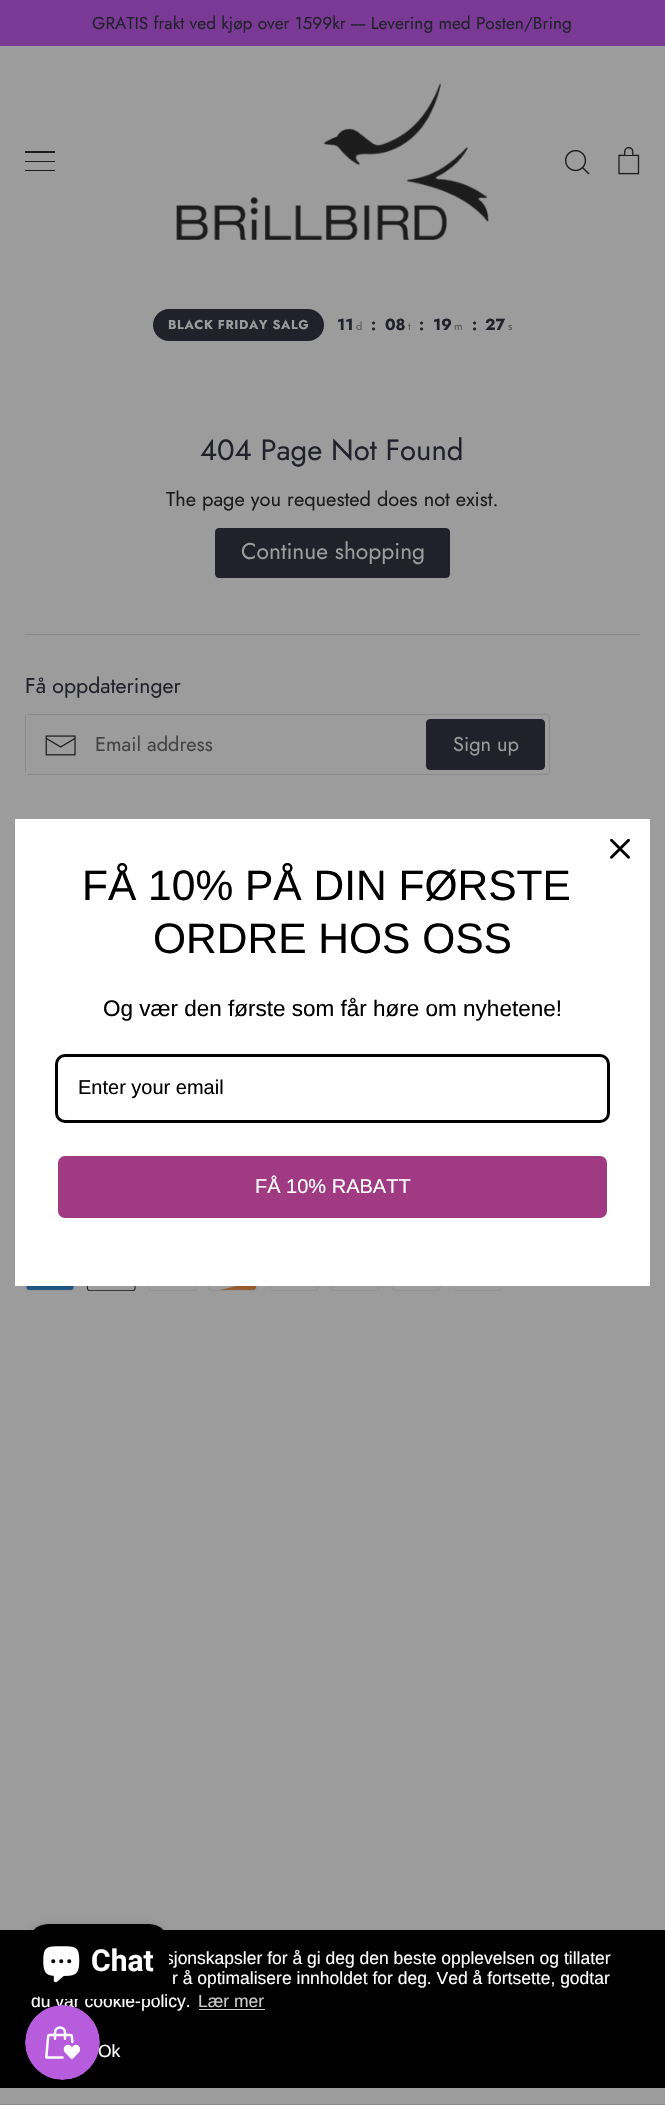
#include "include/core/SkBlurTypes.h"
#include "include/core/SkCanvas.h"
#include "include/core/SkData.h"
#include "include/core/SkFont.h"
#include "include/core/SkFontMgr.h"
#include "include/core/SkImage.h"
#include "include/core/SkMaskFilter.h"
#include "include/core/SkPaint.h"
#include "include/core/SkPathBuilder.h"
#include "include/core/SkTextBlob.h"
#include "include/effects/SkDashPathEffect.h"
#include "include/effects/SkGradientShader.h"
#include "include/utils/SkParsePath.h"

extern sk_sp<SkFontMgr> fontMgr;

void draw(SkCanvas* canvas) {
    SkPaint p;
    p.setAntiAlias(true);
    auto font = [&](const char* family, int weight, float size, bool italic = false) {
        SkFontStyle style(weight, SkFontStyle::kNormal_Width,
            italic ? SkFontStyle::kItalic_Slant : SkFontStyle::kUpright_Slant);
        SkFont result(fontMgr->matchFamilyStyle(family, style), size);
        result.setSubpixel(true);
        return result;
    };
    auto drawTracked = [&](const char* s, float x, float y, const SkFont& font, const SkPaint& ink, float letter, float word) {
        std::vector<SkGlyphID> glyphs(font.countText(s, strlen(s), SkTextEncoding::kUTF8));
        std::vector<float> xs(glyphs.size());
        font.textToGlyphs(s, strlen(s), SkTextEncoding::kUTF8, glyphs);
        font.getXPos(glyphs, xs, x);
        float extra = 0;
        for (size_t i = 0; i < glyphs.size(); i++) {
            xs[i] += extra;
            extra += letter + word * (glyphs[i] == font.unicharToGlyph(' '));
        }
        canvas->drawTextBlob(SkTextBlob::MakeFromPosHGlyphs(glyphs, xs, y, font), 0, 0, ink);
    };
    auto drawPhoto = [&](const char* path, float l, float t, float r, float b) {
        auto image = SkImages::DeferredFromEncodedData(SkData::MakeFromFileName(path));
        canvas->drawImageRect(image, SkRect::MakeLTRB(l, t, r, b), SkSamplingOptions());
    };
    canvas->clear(0xFF9C9C9C);
    p.setColor(0xFF7B3996);
    canvas->drawRect(SkRect::MakeLTRB(0, 0, 665, 46), p);
    auto font1 = font("Jost", 400, 17.3f);
    p.setColor(0xFF20212A);
    canvas->drawString("GRATIS frakt ved kjøp over 1599kr ---- Levering med Posten/Bring", 92, 29, font1, p);
    {
        const struct { float l, t, r, b; SkColor color; } items[] = {
            {25, 151, 55, 153, 0xFF1C1C1C},
            {25, 161, 55, 162, 0xFF1C1C1C},
            {25, 170, 55, 171, 0xFF1C1C1C},
        };
        for (auto [l, t, r, b, color] : items) {
            p.setColor(color);
            canvas->drawRect(SkRect::MakeLTRB(l, t, r, b), p);
        }
    }
    drawPhoto("media/1.png", 176, 83, 489, 240);
    drawPhoto("media/2.png", 564, 149, 590, 175);
    drawPhoto("media/3.png", 618, 146, 640, 175);
    p.setColor(0xFF898989);
    canvas->drawRect(SkRect::MakeLTRB(0, 2104, 665, 2105), p);
    p.setColor(0xFF20212A);
    canvas->drawRoundRect(SkRect::MakeLTRB(153, 309, 324, 341), 16, 16, p);
    auto font2 = font("Jost", 700, 12.75f);
    p.setColor(0xFF9C9C9C);
    drawTracked("BLACK FRIDAY SALG", 168, 329, font2, p, 0.6f, 0);
    auto font3 = font("Jost", 700, 16);
    p.setColor(0xFF20212A);
    canvas->drawString("11", 337, 330, font3, p);
    auto font4 = font("Jost", 400, 11);
    p.setColor(0xFF585858);
    canvas->drawString("d", 356, 330, font4, p);
    p.setColor(0xFF20212A);
    canvas->drawString(":", 371, 330, font3, p);
    canvas->drawString("08", 385, 330, font3, p);
    p.setColor(0xFF585858);
    canvas->drawString("t", 408, 330, font4, p);
    p.setColor(0xFF20212A);
    canvas->drawString(":", 419, 330, font3, p);
    canvas->drawString("19", 433, 330, font3, p);
    p.setColor(0xFF585858);
    canvas->drawString("m", 454, 330, font4, p);
    p.setColor(0xFF20212A);
    canvas->drawString(":", 472, 330, font3, p);
    canvas->drawString("27", 485, 330, font3, p);
    p.setColor(0xFF585858);
    canvas->drawString("s", 508, 330, font4, p);
    auto font5 = font("Jost", 400, 29.25f);
    p.setColor(0xFF20212A);
    canvas->drawString("404 Page Not Found", 200, 460, font5, p);
    auto font6 = font("Jost", 400, 20);
    p.setColor(0xFF1C1C1C);
    canvas->drawString("The page you requested does not exist.", 166, 506, font6, p);
    p.setColor(0xFF20212A);
    canvas->drawRoundRect(SkRect::MakeLTRB(215.5f, 528.5f, 449.5f, 577.5f), 3.5f, 3.5f, p);
    p.setStyle(SkPaint::kStroke_Style);
    p.setStrokeWidth(1);
    canvas->drawRoundRect(SkRect::MakeLTRB(215.5f, 528.5f, 449.5f, 577.5f), 3.5f, 3.5f, p);
    auto font7 = font("Jost", 400, 22.75f);
    p.setStyle(SkPaint::kFill_Style);
    p.setColor(0xFF9C9C9C);
    canvas->drawString("Continue shopping", 241, 559, font7, p);
    p.setColor(0xFF898989);
    canvas->drawRect(SkRect::MakeLTRB(25, 634, 640, 635), p);
    auto font8 = font("Jost", 400, 21.25f);
    p.setColor(0xFF20212A);
    canvas->drawString("Få oppdateringer", 25, 693, font8, p);
    p.setStyle(SkPaint::kStroke_Style);
    p.setColor(0xFF898989);
    canvas->drawRoundRect(SkRect::MakeLTRB(25.5f, 714.5f, 549.5f, 774.5f), 3.5f, 3.5f, p);
    drawPhoto("media/4.png", 45, 735, 76, 756);
    p.setStyle(SkPaint::kFill_Style);
    p.setColor(0xFF9C9C9C);
    canvas->drawRect(SkRect::MakeLTRB(26, 715, 28, 774), p);
    p.setColor(0xFF434343);
    canvas->drawString("Email address", 95, 751, font6, p);
    p.setColor(0xFF20212A);
    canvas->drawRoundRect(SkRect::MakeLTRB(426.5f, 719.5f, 544.5f, 769.5f), 3.5f, 3.5f, p);
    p.setStyle(SkPaint::kStroke_Style);
    canvas->drawRoundRect(SkRect::MakeLTRB(426.5f, 719.5f, 544.5f, 769.5f), 3.5f, 3.5f, p);
    p.setStyle(SkPaint::kFill_Style);
    p.setColor(0xFF9C9C9C);
    canvas->drawString("Sign up", 453, 751, font6, p);
    drawPhoto("media/5.png", 25, 1286, 75, 1291);
    drawPhoto("media/6.png", 86, 1286, 136, 1291);
    drawPhoto("media/7.png", 148, 1286, 197, 1291);
    drawPhoto("media/8.png", 208, 1286, 257, 1291);
    drawPhoto("media/9.png", 269, 1286, 319, 1291);
    drawPhoto("media/10.png", 330, 1286, 380, 1291);
    drawPhoto("media/11.png", 391, 1286, 441, 1291);
    drawPhoto("media/7.png", 453, 1286, 502, 1291);
    p.setColor(0xFFFFFFFF);
    canvas->drawRect(SkRect::MakeLTRB(15, 819, 650, 1286), p);
    drawPhoto("media/12.png", 610, 839, 630, 859);
    auto font9 = font("Liberation Sans", 400, 42.5f);
    p.setColor(0xFF000000);
    canvas->drawString("FÅ 10% PÅ DIN FØRSTE", 82, 900, font9, p);
    canvas->drawString("ORDRE HOS OSS", 153, 953, font9, p);
    auto font10 = font("Liberation Sans", 400, 22.5f);
    canvas->drawString("Og vær den første som får høre om nyhetene!", 103, 1016, font10, p);
    p.setStyle(SkPaint::kStroke_Style);
    p.setStrokeWidth(3);
    canvas->drawRoundRect(SkRect::MakeLTRB(56.5f, 1055.5f, 608.5f, 1121.5f), 8.5f, 8.5f, p);
    auto font11 = font("Liberation Sans", 400, 20);
    p.setStyle(SkPaint::kFill_Style);
    canvas->drawString("Enter your email", 78, 1094, font11, p);
    p.setColor(0xFFA03B83);
    canvas->drawRoundRect(SkRect::MakeLTRB(56.5f, 1154.5f, 608.5f, 1219.5f), 8.5f, 8.5f, p);
    p.setStyle(SkPaint::kStroke_Style);
    p.setColor(0xFFFFFFFF);
    canvas->drawRoundRect(SkRect::MakeLTRB(56.5f, 1154.5f, 608.5f, 1219.5f), 8.5f, 8.5f, p);
    p.setStyle(SkPaint::kFill_Style);
    canvas->drawString("FÅ 10% RABATT", 255, 1193, font11, p);
    p.setColor(0xFF000000);
    canvas->drawRect(SkRect::MakeLTRB(0, 1930, 665, 2088), p);
    p.setColor(0x26000000);
    p.setMaskFilter(SkMaskFilter::MakeBlur(kNormal_SkBlurStyle, 3));
    canvas->drawRoundRect(SkRect::MakeLTRB(28, 1924, 169, 1999), 20, 20, p);
    p.setMaskFilter(nullptr);
    auto font12 = font("Liberation Sans", 400, 17.5f);
    p.setColor(0xFFFFFFFF);
    canvas->drawString("sjonskapsler for å gi deg den beste opplevelsen og tillater", 165, 1964, font12, p);
    canvas->drawString("du vår cookie-policy.", 31, 2007, font12, p);
    p.setColor(0xFF000000);
    canvas->drawRoundRect(SkRect::MakeLTRB(28, 1924, 169, 1999), 20, 20, p);
    drawPhoto("media/13.png", 43, 1946, 80, 1983);
    auto font13 = font("Roboto", 700, 30);
    p.setColor(0xFFFFFFFF);
    canvas->drawString("Chat", 91, 1971, font13, p);
    canvas->drawString("r å optimalisere innholdet for deg. Ved å fortsette, godtar", 172, 1984, font12, p);
    p.setColor(0xFFCCCCCC);
    canvas->drawString("Lær mer", 198, 2007, font12, p);
    canvas->drawRect(SkRect::MakeLTRB(199, 2009, 265, 2010), p);
    p.setColor(0xFFFFFFFF);
    canvas->drawString("Ok", 98, 2057, font12, p);
    drawPhoto("media/14.png", 25, 2005, 100, 2080);
}
